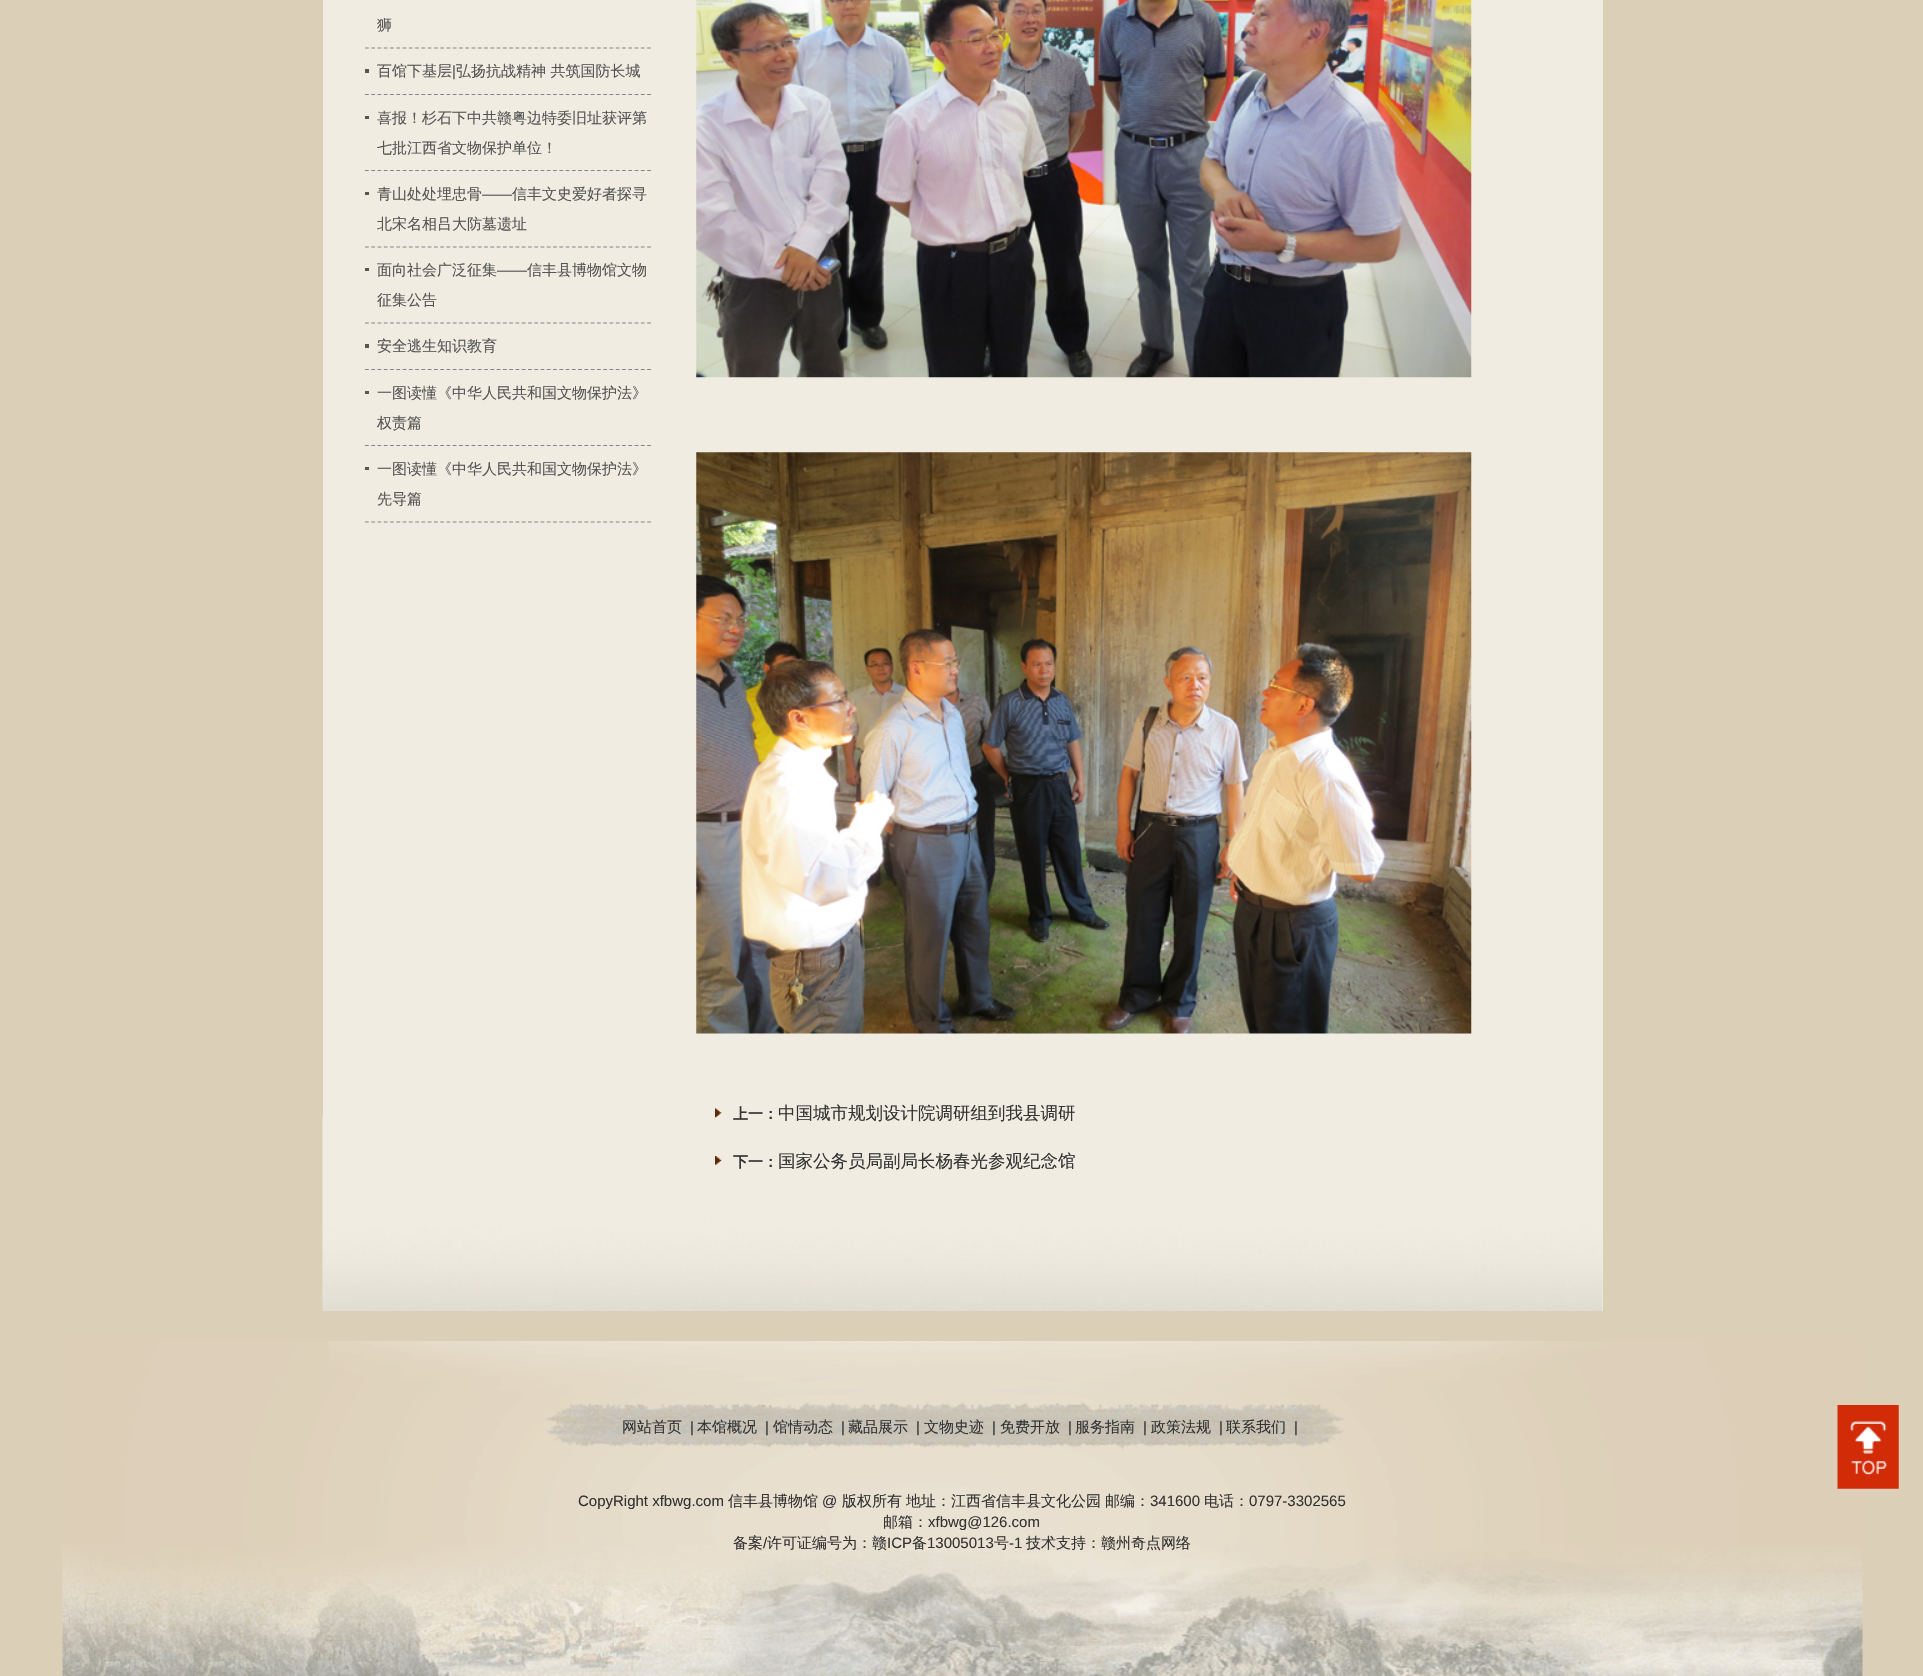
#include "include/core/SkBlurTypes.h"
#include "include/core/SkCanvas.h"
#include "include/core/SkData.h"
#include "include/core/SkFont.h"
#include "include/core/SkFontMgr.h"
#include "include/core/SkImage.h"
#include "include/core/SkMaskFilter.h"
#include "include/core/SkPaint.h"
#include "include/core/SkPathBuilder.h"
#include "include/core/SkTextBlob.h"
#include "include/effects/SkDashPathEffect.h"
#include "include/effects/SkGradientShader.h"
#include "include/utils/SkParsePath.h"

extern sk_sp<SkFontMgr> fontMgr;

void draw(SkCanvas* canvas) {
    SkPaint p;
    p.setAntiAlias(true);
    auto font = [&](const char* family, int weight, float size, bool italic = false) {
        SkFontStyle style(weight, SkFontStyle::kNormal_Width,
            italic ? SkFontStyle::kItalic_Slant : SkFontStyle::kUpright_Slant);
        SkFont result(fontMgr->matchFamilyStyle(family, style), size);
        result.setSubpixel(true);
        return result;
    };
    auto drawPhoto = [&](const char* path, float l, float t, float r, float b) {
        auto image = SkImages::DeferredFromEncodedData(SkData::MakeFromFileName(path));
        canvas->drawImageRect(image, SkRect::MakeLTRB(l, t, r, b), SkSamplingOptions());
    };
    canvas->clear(0xFFDCCFB7);
    p.setColor(0xFFF1ECE1);
    canvas->drawRect(SkRect::MakeLTRB(323, 0, 1603, 1311), p);
    drawPhoto("media/1.png", 322, 1117, 1603, 1311);
    p.setStyle(SkPaint::kStroke_Style);
    p.setStrokeWidth(1.2f);
    p.setColor(0xFF848484);
    p.setPathEffect(SkDashPathEffect::Make({{3.75f, 2.52f}}, 0));
    canvas->drawPath(SkPathBuilder().moveTo(365, 48).lineTo(651, 48).detach(), p);
    p.setPathEffect(nullptr);
    auto font1 = font("WenQuanYi Zen Hei", 500, 15);
    p.setStyle(SkPaint::kFill_Style);
    p.setColor(0xFF555555);
    canvas->drawString("狮", 377, 30, font1, p);
    p.setColor(0xFF575654);
    canvas->drawRect(SkRect::MakeLTRB(365, 69, 369, 73), p);
    p.setStyle(SkPaint::kStroke_Style);
    p.setColor(0xFF848484);
    p.setPathEffect(SkDashPathEffect::Make({{3.75f, 2.52f}}, 0));
    canvas->drawPath(SkPathBuilder().moveTo(365, 94.5f).lineTo(651, 94.5f).detach(), p);
    p.setPathEffect(nullptr);
    p.setStyle(SkPaint::kFill_Style);
    p.setColor(0xFF555555);
    canvas->drawString("百馆下基层", 377, 76, font1, p);
    auto font2 = font("Liberation Sans", 400, 15);
    canvas->drawString("|", 452, 76, font2, p);
    canvas->drawString("弘扬抗战精神 共筑国防长城", 456, 76, font1, p);
    p.setColor(0xFF575654);
    canvas->drawRect(SkRect::MakeLTRB(365, 116, 369, 119), p);
    p.setStyle(SkPaint::kStroke_Style);
    p.setColor(0xFF848484);
    p.setPathEffect(SkDashPathEffect::Make({{3.75f, 2.52f}}, 0));
    canvas->drawPath(SkPathBuilder().moveTo(365, 170.5f).lineTo(651, 170.5f).detach(), p);
    p.setPathEffect(nullptr);
    p.setStyle(SkPaint::kFill_Style);
    p.setColor(0xFF555555);
    canvas->drawString("喜报！杉石下中共赣粤边特委旧址获评第", 377, 123, font1, p);
    canvas->drawString("七批江西省文物保护单位！", 377, 153, font1, p);
    p.setColor(0xFF575654);
    canvas->drawRect(SkRect::MakeLTRB(365, 192, 369, 195), p);
    p.setStyle(SkPaint::kStroke_Style);
    p.setColor(0xFF848484);
    p.setPathEffect(SkDashPathEffect::Make({{3.75f, 2.52f}}, 0));
    canvas->drawPath(SkPathBuilder().moveTo(365, 247).lineTo(651, 247).detach(), p);
    p.setPathEffect(nullptr);
    p.setStyle(SkPaint::kFill_Style);
    p.setColor(0xFF555555);
    canvas->drawString("青山处处埋忠骨", 377, 199, font1, p);
    canvas->drawString("——", 482, 199, font2, p);
    canvas->drawString("信丰文史爱好者探寻", 512, 199, font1, p);
    canvas->drawString("北宋名相吕大防墓遗址", 377, 229, font1, p);
    p.setColor(0xFF575654);
    canvas->drawRect(SkRect::MakeLTRB(365, 268, 369, 271), p);
    p.setStyle(SkPaint::kStroke_Style);
    p.setColor(0xFF848484);
    p.setPathEffect(SkDashPathEffect::Make({{3.75f, 2.52f}}, 0));
    canvas->drawPath(SkPathBuilder().moveTo(365, 323).lineTo(651, 323).detach(), p);
    p.setPathEffect(nullptr);
    p.setStyle(SkPaint::kFill_Style);
    p.setColor(0xFF555555);
    canvas->drawString("面向社会广泛征集", 377, 275, font1, p);
    canvas->drawString("——", 497, 275, font2, p);
    canvas->drawString("信丰县博物馆文物", 527, 275, font1, p);
    canvas->drawString("征集公告", 377, 305, font1, p);
    p.setColor(0xFF575654);
    canvas->drawRect(SkRect::MakeLTRB(365, 344, 369, 348), p);
    p.setStyle(SkPaint::kStroke_Style);
    p.setColor(0xFF848484);
    p.setPathEffect(SkDashPathEffect::Make({{3.75f, 2.52f}}, 0));
    canvas->drawPath(SkPathBuilder().moveTo(365, 369.5f).lineTo(651, 369.5f).detach(), p);
    p.setPathEffect(nullptr);
    p.setStyle(SkPaint::kFill_Style);
    p.setColor(0xFF555555);
    canvas->drawString("安全逃生知识教育", 377, 351, font1, p);
    p.setColor(0xFF575654);
    canvas->drawRect(SkRect::MakeLTRB(365, 391, 369, 394), p);
    p.setStyle(SkPaint::kStroke_Style);
    p.setColor(0xFF848484);
    p.setPathEffect(SkDashPathEffect::Make({{3.75f, 2.52f}}, 0));
    canvas->drawPath(SkPathBuilder().moveTo(365, 445.5f).lineTo(651, 445.5f).detach(), p);
    p.setPathEffect(nullptr);
    p.setStyle(SkPaint::kFill_Style);
    p.setColor(0xFF555555);
    canvas->drawString("一图读懂《中华人民共和国文物保护法》", 377, 398, font1, p);
    canvas->drawString("权责篇", 377, 428, font1, p);
    p.setColor(0xFF575654);
    canvas->drawRect(SkRect::MakeLTRB(365, 467, 369, 470), p);
    p.setStyle(SkPaint::kStroke_Style);
    p.setColor(0xFF848484);
    p.setPathEffect(SkDashPathEffect::Make({{3.75f, 2.52f}}, 0));
    canvas->drawPath(SkPathBuilder().moveTo(365, 522).lineTo(651, 522).detach(), p);
    p.setPathEffect(nullptr);
    p.setStyle(SkPaint::kFill_Style);
    p.setColor(0xFF555555);
    canvas->drawString("一图读懂《中华人民共和国文物保护法》", 377, 474, font1, p);
    canvas->drawString("先导篇", 377, 504, font1, p);
    drawPhoto("media/2.png", 696, 0, 1472, 378);
    drawPhoto("media/3.png", 696, 452, 1472, 1034);
    drawPhoto("media/4.png", 715, 1108, 722, 1118);
    auto font3 = font("WenQuanYi Zen Hei", 700, 15);
    p.setColor(0xFF333333);
    canvas->drawString("上一：", 733, 1119, font3, p);
    auto font4 = font("WenQuanYi Zen Hei", 500, 17.5f);
    canvas->drawString("中国城市规划设计院调研组到我县调研", 778, 1119, font4, p);
    drawPhoto("media/5.png", 715, 1156, 722, 1165);
    canvas->drawString("下一：", 733, 1167, font3, p);
    canvas->drawString("国家公务员局副局长杨春光参观纪念馆", 778, 1167, font4, p);
    drawPhoto("media/6.png", 62, 1341, 1863, 1676);
    canvas->drawString("网站首页", 622, 1432, font1, p);
    canvas->drawString("|", 690, 1432, font2, p);
    canvas->drawString("本馆概况", 697, 1432, font1, p);
    canvas->drawString("|", 765, 1432, font2, p);
    canvas->drawString("馆情动态", 773, 1432, font1, p);
    canvas->drawString("|", 841, 1432, font2, p);
    canvas->drawString("藏品展示", 848, 1432, font1, p);
    canvas->drawString("|", 916, 1432, font2, p);
    canvas->drawString("文物史迹", 924, 1432, font1, p);
    canvas->drawString("|", 992, 1432, font2, p);
    canvas->drawString("免费开放", 1000, 1432, font1, p);
    canvas->drawString("|", 1068, 1432, font2, p);
    canvas->drawString("服务指南", 1075, 1432, font1, p);
    canvas->drawString("|", 1143, 1432, font2, p);
    canvas->drawString("政策法规", 1151, 1432, font1, p);
    canvas->drawString("|", 1219, 1432, font2, p);
    canvas->drawString("联系我们", 1226, 1432, font1, p);
    canvas->drawString("|", 1294, 1432, font2, p);
    canvas->drawString("CopyRight xfbwg.com", 578, 1506, font2, p);
    canvas->drawString("信丰县博物馆", 728, 1506, font1, p);
    canvas->drawString("@", 822, 1506, font2, p);
    {
        const struct { const char* s; float x, y; } items[] = {
            {"版权所有", 842, 1506},
            {"地址：江西省信丰县文化公园", 906, 1506},
            {"邮编：", 1105, 1506},
        };
        for (auto [s, x, y] : items) {
            canvas->drawString(s, x, y, font1, p);
        }
    }
    canvas->drawString("341600", 1150, 1506, font2, p);
    canvas->drawString("电话：", 1204, 1506, font1, p);
    canvas->drawString("0797-3302565", 1249, 1506, font2, p);
    canvas->drawString("邮箱：", 883, 1527, font1, p);
    canvas->drawString("xfbwg@126.com", 928, 1527, font2, p);
    canvas->drawString("备案", 733, 1548, font1, p);
    canvas->drawString("/", 763, 1548, font2, p);
    canvas->drawString("许可证编号为：赣", 767, 1548, font1, p);
    canvas->drawString("ICP", 887, 1548, font2, p);
    canvas->drawString("备", 912, 1548, font1, p);
    canvas->drawString("13005013", 927, 1548, font2, p);
    canvas->drawString("号", 994, 1548, font1, p);
    canvas->drawString("-1", 1009, 1548, font2, p);
    canvas->drawString("技术支持：赣州奇点网络", 1026, 1548, font1, p);
    drawPhoto("media/7.png", 1837, 1405, 1899, 1489);
}
